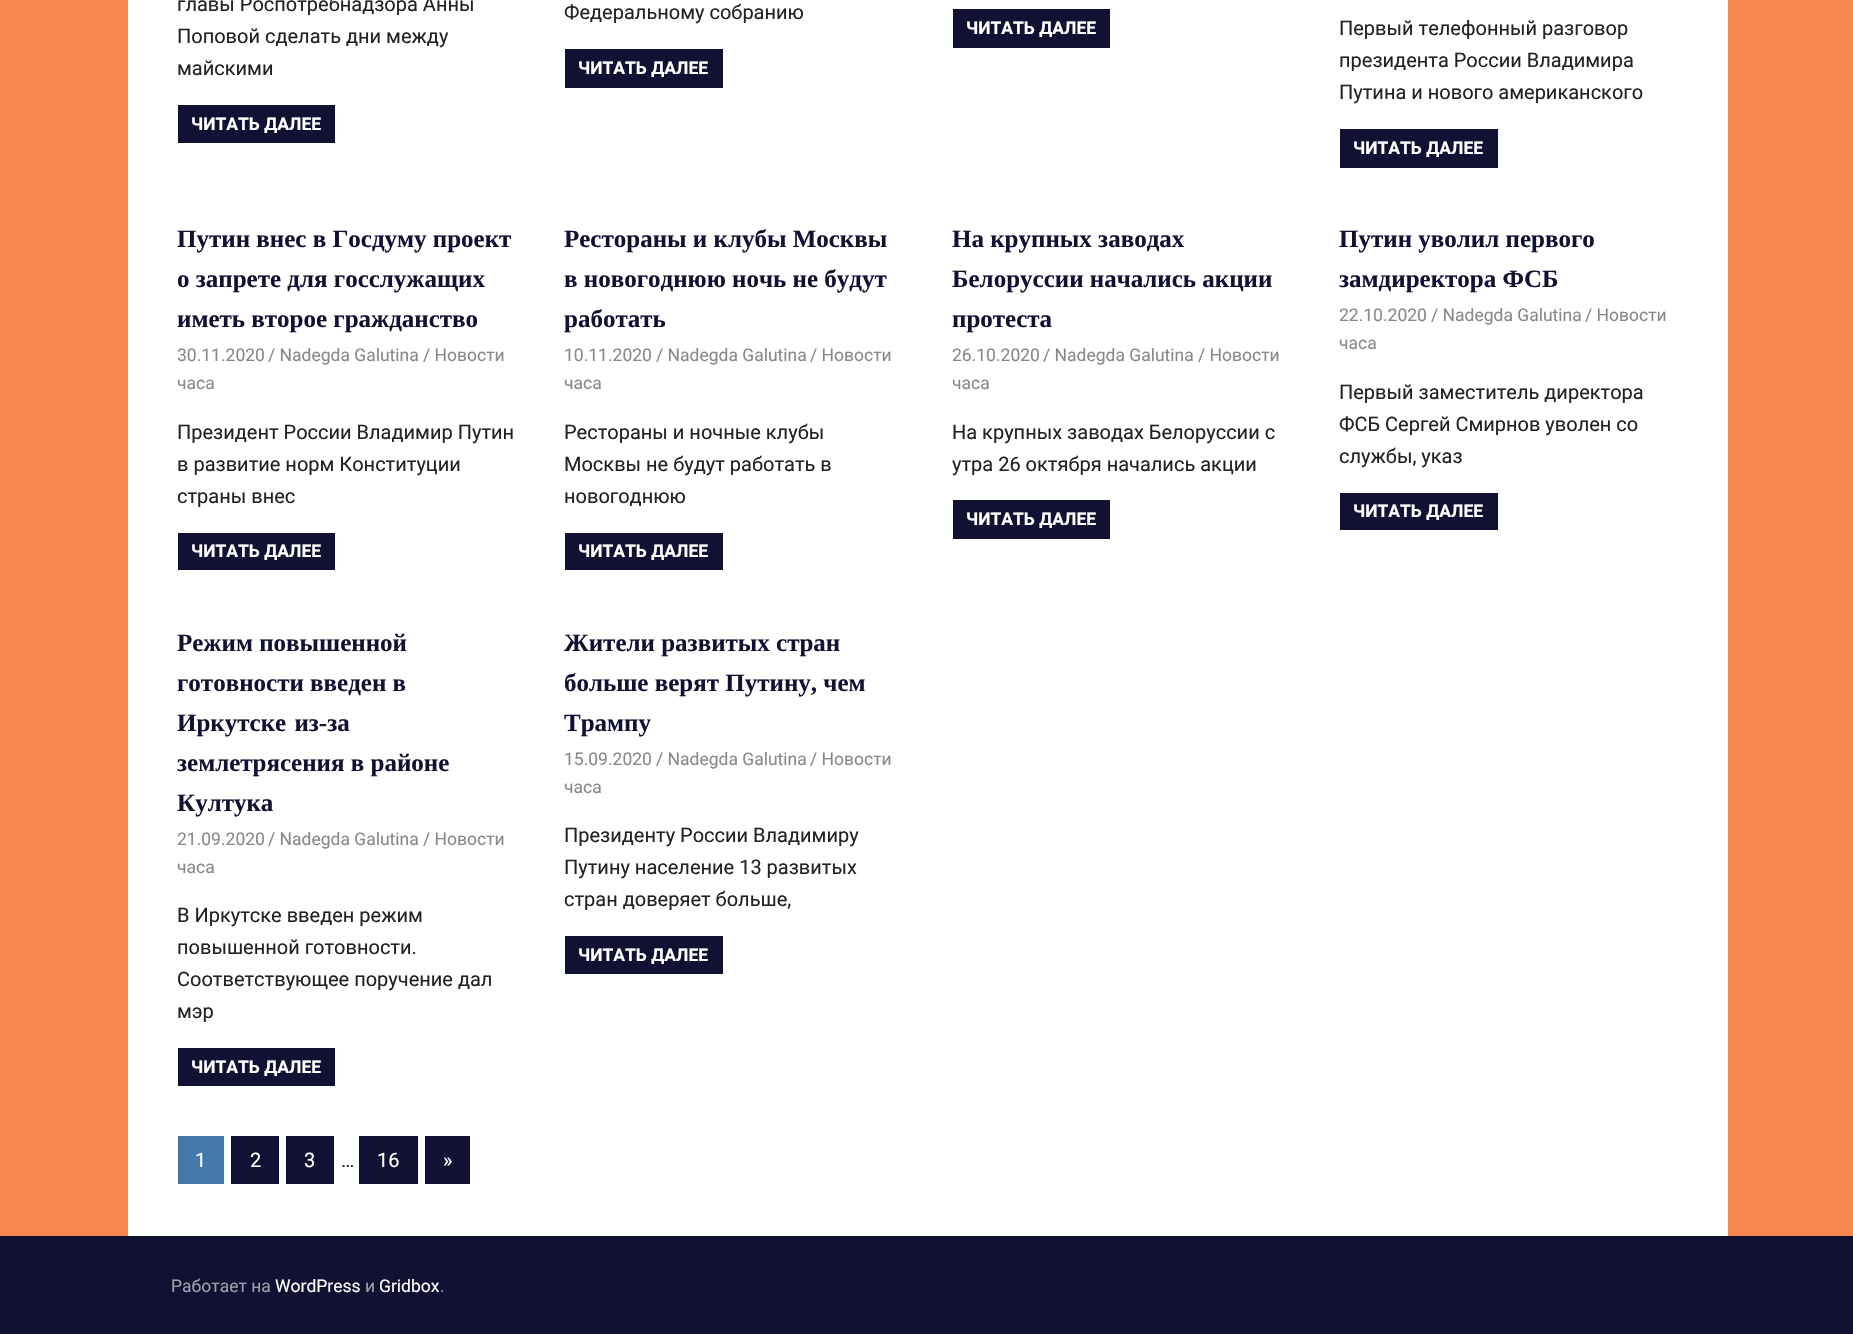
#include "include/core/SkBlurTypes.h"
#include "include/core/SkCanvas.h"
#include "include/core/SkData.h"
#include "include/core/SkFont.h"
#include "include/core/SkFontMgr.h"
#include "include/core/SkImage.h"
#include "include/core/SkMaskFilter.h"
#include "include/core/SkPaint.h"
#include "include/core/SkPathBuilder.h"
#include "include/core/SkTextBlob.h"
#include "include/effects/SkDashPathEffect.h"
#include "include/effects/SkGradientShader.h"
#include "include/utils/SkParsePath.h"

extern sk_sp<SkFontMgr> fontMgr;

void draw(SkCanvas* canvas) {
    SkPaint p;
    p.setAntiAlias(true);
    auto font = [&](const char* family, int weight, float size, bool italic = false) {
        SkFontStyle style(weight, SkFontStyle::kNormal_Width,
            italic ? SkFontStyle::kItalic_Slant : SkFontStyle::kUpright_Slant);
        SkFont result(fontMgr->matchFamilyStyle(family, style), size);
        result.setSubpixel(true);
        return result;
    };
    auto drawTracked = [&](const char* s, float x, float y, const SkFont& font, const SkPaint& ink, float letter, float word) {
        std::vector<SkGlyphID> glyphs(font.countText(s, strlen(s), SkTextEncoding::kUTF8));
        std::vector<float> xs(glyphs.size());
        font.textToGlyphs(s, strlen(s), SkTextEncoding::kUTF8, glyphs);
        font.getXPos(glyphs, xs, x);
        float extra = 0;
        for (size_t i = 0; i < glyphs.size(); i++) {
            xs[i] += extra;
            extra += letter + word * (glyphs[i] == font.unicharToGlyph(' '));
        }
        canvas->drawTextBlob(SkTextBlob::MakeFromPosHGlyphs(glyphs, xs, y, font), 0, 0, ink);
    };
    canvas->clear(0xFFF7874F);
    p.setColor(0xFFFFFFFF);
    canvas->drawRect(SkRect::MakeLTRB(128, 0, 1728, 1236), p);
    auto font1 = font("Roboto", 400, 20);
    p.setColor(0xFF222222);
    {
        const struct { const char* s; float x, y; } items[] = {
            {"главы Роспотребнадзора Анны", 177, 11},
            {"Поповой сделать дни между", 177, 43},
            {"майскими", 177, 75},
        };
        for (auto [s, x, y] : items) {
            canvas->drawString(s, x, y, font1, p);
        }
    }
    p.setColor(0xFF111133);
    canvas->drawRect(SkRect::MakeLTRB(178, 105, 335, 143), p);
    auto font2 = font("Roboto", 700, 17.5f);
    p.setColor(0xFFFFFFFF);
    canvas->drawString("ЧИТАТЬ ДАЛЕЕ", 191, 130, font2, p);
    p.setColor(0xFF222222);
    canvas->drawString("Федеральному собранию", 564, 19, font1, p);
    p.setColor(0xFF111133);
    canvas->drawRect(SkRect::MakeLTRB(565, 49, 723, 88), p);
    p.setColor(0xFFFFFFFF);
    canvas->drawString("ЧИТАТЬ ДАЛЕЕ", 578, 74, font2, p);
    p.setColor(0xFF111133);
    canvas->drawRect(SkRect::MakeLTRB(953, 9, 1110, 48), p);
    p.setColor(0xFFFFFFFF);
    canvas->drawString("ЧИТАТЬ ДАЛЕЕ", 966, 34, font2, p);
    p.setColor(0xFF222222);
    {
        const struct { const char* s; float x, y; } items[] = {
            {"Первый телефонный разговор", 1339, 35},
            {"президента России Владимира", 1339, 67},
            {"Путина и нового американского", 1339, 99},
        };
        for (auto [s, x, y] : items) {
            canvas->drawString(s, x, y, font1, p);
        }
    }
    p.setColor(0xFF111133);
    canvas->drawRect(SkRect::MakeLTRB(1340, 129, 1498, 168), p);
    p.setColor(0xFFFFFFFF);
    canvas->drawString("ЧИТАТЬ ДАЛЕЕ", 1353, 154, font2, p);
    auto font3 = font("Liberation Serif", 700, 25);
    p.setColor(0xFF111133);
    {
        const struct { const char* s; float x, y; } items[] = {
            {"Путин внес в Госдуму проект", 177, 247},
            {"о запрете для госслужащих", 177, 287},
            {"иметь второе гражданство", 177, 327},
        };
        for (auto [s, x, y] : items) {
            canvas->drawString(s, x, y, font3, p);
        }
    }
    auto font4 = font("Roboto", 400, 17.5f);
    p.setColor(0xFF888888);
    {
        const struct { const char* s; float x, y; } items[] = {
            {"30.11.2020", 177, 361},
            {"/ Nadegda Galutina", 268, 361},
            {"/ Новости", 423, 361},
            {"часа", 177, 389},
        };
        for (auto [s, x, y] : items) {
            canvas->drawString(s, x, y, font4, p);
        }
    }
    p.setColor(0xFF222222);
    {
        const struct { const char* s; float x, y; } items[] = {
            {"Президент России Владимир Путин", 177, 439},
            {"в развитие норм Конституции", 177, 471},
            {"страны внес", 177, 503},
        };
        for (auto [s, x, y] : items) {
            canvas->drawString(s, x, y, font1, p);
        }
    }
    p.setColor(0xFF111133);
    canvas->drawRect(SkRect::MakeLTRB(178, 533, 335, 570), p);
    p.setColor(0xFFFFFFFF);
    canvas->drawString("ЧИТАТЬ ДАЛЕЕ", 191, 557, font2, p);
    p.setColor(0xFF111133);
    {
        const struct { const char* s; float x, y; } items[] = {
            {"Рестораны и клубы Москвы", 564, 247},
            {"в новогоднюю ночь не будут", 564, 287},
            {"работать", 564, 327},
        };
        for (auto [s, x, y] : items) {
            canvas->drawString(s, x, y, font3, p);
        }
    }
    p.setColor(0xFF888888);
    {
        const struct { const char* s; float x, y; } items[] = {
            {"10.11.2020", 564, 361},
            {"/ Nadegda Galutina", 656, 361},
            {"/ Новости", 810, 361},
            {"часа", 564, 389},
        };
        for (auto [s, x, y] : items) {
            canvas->drawString(s, x, y, font4, p);
        }
    }
    p.setColor(0xFF222222);
    {
        const struct { const char* s; float x, y; } items[] = {
            {"Рестораны и ночные клубы", 564, 439},
            {"Москвы не будут работать в", 564, 471},
            {"новогоднюю", 564, 503},
        };
        for (auto [s, x, y] : items) {
            canvas->drawString(s, x, y, font1, p);
        }
    }
    p.setColor(0xFF111133);
    canvas->drawRect(SkRect::MakeLTRB(565, 533, 723, 570), p);
    p.setColor(0xFFFFFFFF);
    canvas->drawString("ЧИТАТЬ ДАЛЕЕ", 578, 557, font2, p);
    p.setColor(0xFF111133);
    {
        const struct { const char* s; float x, y; } items[] = {
            {"На крупных заводах", 952, 247},
            {"Белоруссии начались акции", 952, 287},
            {"протеста", 952, 327},
        };
        for (auto [s, x, y] : items) {
            canvas->drawString(s, x, y, font3, p);
        }
    }
    p.setColor(0xFF888888);
    {
        const struct { const char* s; float x, y; } items[] = {
            {"26.10.2020", 952, 361},
            {"/ Nadegda Galutina", 1043, 361},
            {"/ Новости", 1198, 361},
            {"часа", 952, 389},
        };
        for (auto [s, x, y] : items) {
            canvas->drawString(s, x, y, font4, p);
        }
    }
    p.setColor(0xFF222222);
    canvas->drawString("На крупных заводах Белоруссии с", 952, 439, font1, p);
    canvas->drawString("утра 26 октября начались акции", 952, 471, font1, p);
    p.setColor(0xFF111133);
    canvas->drawRect(SkRect::MakeLTRB(953, 500, 1110, 539), p);
    p.setColor(0xFFFFFFFF);
    canvas->drawString("ЧИТАТЬ ДАЛЕЕ", 966, 525, font2, p);
    p.setColor(0xFF111133);
    canvas->drawString("Путин уволил первого", 1339, 247, font3, p);
    canvas->drawString("замдиректора ФСБ", 1339, 287, font3, p);
    p.setColor(0xFF888888);
    {
        const struct { const char* s; float x, y; } items[] = {
            {"22.10.2020", 1339, 321},
            {"/ Nadegda Galutina", 1431, 321},
            {"/ Новости", 1585, 321},
            {"часа", 1339, 349},
        };
        for (auto [s, x, y] : items) {
            canvas->drawString(s, x, y, font4, p);
        }
    }
    p.setColor(0xFF222222);
    {
        const struct { const char* s; float x, y; } items[] = {
            {"Первый заместитель директора", 1339, 399},
            {"ФСБ Сергей Смирнов уволен со", 1339, 431},
            {"службы, указ", 1339, 463},
        };
        for (auto [s, x, y] : items) {
            canvas->drawString(s, x, y, font1, p);
        }
    }
    p.setColor(0xFF111133);
    canvas->drawRect(SkRect::MakeLTRB(1340, 493, 1498, 530), p);
    p.setColor(0xFFFFFFFF);
    canvas->drawString("ЧИТАТЬ ДАЛЕЕ", 1353, 517, font2, p);
    p.setColor(0xFF111133);
    canvas->drawString("Режим повышенной", 177, 651, font3, p);
    canvas->drawString("готовности введен в", 177, 691, font3, p);
    drawTracked("Иркутске из-за", 177, 731, font3, p, 0, 2);
    canvas->drawString("землетрясения в районе", 177, 771, font3, p);
    canvas->drawString("Култука", 177, 811, font3, p);
    p.setColor(0xFF888888);
    {
        const struct { const char* s; float x, y; } items[] = {
            {"21.09.2020", 177, 845},
            {"/ Nadegda Galutina", 268, 845},
            {"/ Новости", 423, 845},
            {"часа", 177, 873},
        };
        for (auto [s, x, y] : items) {
            canvas->drawString(s, x, y, font4, p);
        }
    }
    p.setColor(0xFF222222);
    {
        const struct { const char* s; float x, y; } items[] = {
            {"В Иркутске введен режим", 177, 922},
            {"повышенной готовности.", 177, 954},
            {"Соответствующее поручение дал", 177, 986},
            {"мэр", 177, 1018},
        };
        for (auto [s, x, y] : items) {
            canvas->drawString(s, x, y, font1, p);
        }
    }
    p.setColor(0xFF111133);
    canvas->drawRect(SkRect::MakeLTRB(178, 1048, 335, 1086), p);
    p.setColor(0xFFFFFFFF);
    canvas->drawString("ЧИТАТЬ ДАЛЕЕ", 191, 1073, font2, p);
    p.setColor(0xFF111133);
    {
        const struct { const char* s; float x, y; } items[] = {
            {"Жители развитых стран", 564, 651},
            {"больше верят Путину, чем", 564, 691},
            {"Трампу", 564, 731},
        };
        for (auto [s, x, y] : items) {
            canvas->drawString(s, x, y, font3, p);
        }
    }
    p.setColor(0xFF888888);
    {
        const struct { const char* s; float x, y; } items[] = {
            {"15.09.2020", 564, 765},
            {"/ Nadegda Galutina", 656, 765},
            {"/ Новости", 810, 765},
            {"часа", 564, 793},
        };
        for (auto [s, x, y] : items) {
            canvas->drawString(s, x, y, font4, p);
        }
    }
    p.setColor(0xFF222222);
    {
        const struct { const char* s; float x, y; } items[] = {
            {"Президенту России Владимиру", 564, 842},
            {"Путину население 13 развитых", 564, 874},
            {"стран доверяет больше,", 564, 906},
        };
        for (auto [s, x, y] : items) {
            canvas->drawString(s, x, y, font1, p);
        }
    }
    p.setColor(0xFF111133);
    canvas->drawRect(SkRect::MakeLTRB(565, 936, 723, 974), p);
    p.setColor(0xFFFFFFFF);
    canvas->drawString("ЧИТАТЬ ДАЛЕЕ", 578, 961, font2, p);
    p.setColor(0xFF4477AA);
    canvas->drawRect(SkRect::MakeLTRB(178, 1136, 224, 1184), p);
    p.setColor(0xFFFFFFFF);
    canvas->drawString("1", 195, 1167, font1, p);
    p.setColor(0xFF111133);
    canvas->drawRect(SkRect::MakeLTRB(231, 1136, 279, 1184), p);
    p.setColor(0xFFFFFFFF);
    canvas->drawString("2", 250, 1167, font1, p);
    p.setColor(0xFF111133);
    canvas->drawRect(SkRect::MakeLTRB(286, 1136, 334, 1184), p);
    p.setColor(0xFFFFFFFF);
    canvas->drawString("3", 304, 1167, font1, p);
    p.setColor(0xFF222222);
    canvas->drawString("…", 341, 1167, font1, p);
    p.setColor(0xFF111133);
    canvas->drawRect(SkRect::MakeLTRB(359, 1136, 418, 1184), p);
    p.setColor(0xFFFFFFFF);
    canvas->drawString("16", 377, 1167, font1, p);
    p.setColor(0xFF111133);
    canvas->drawRect(SkRect::MakeLTRB(425, 1136, 470, 1184), p);
    p.setColor(0xFFFFFFFF);
    canvas->drawString("»", 443, 1167, font1, p);
    p.setColor(0xFF111133);
    canvas->drawRect(SkRect::MakeLTRB(0, 1236, 1853, 1334), p);
    p.setColor(0xFFA0A0AD);
    canvas->drawString("Работает на", 171, 1292, font4, p);
    p.setColor(0xFFFFFFFF);
    canvas->drawString("WordPress", 275, 1292, font4, p);
    p.setColor(0xFFA0A0AD);
    canvas->drawString("и", 365, 1292, font4, p);
    p.setColor(0xFFFFFFFF);
    canvas->drawString("Gridbox", 379, 1292, font4, p);
    p.setColor(0xFFA0A0AD);
    canvas->drawString(".", 440, 1292, font4, p);
}
